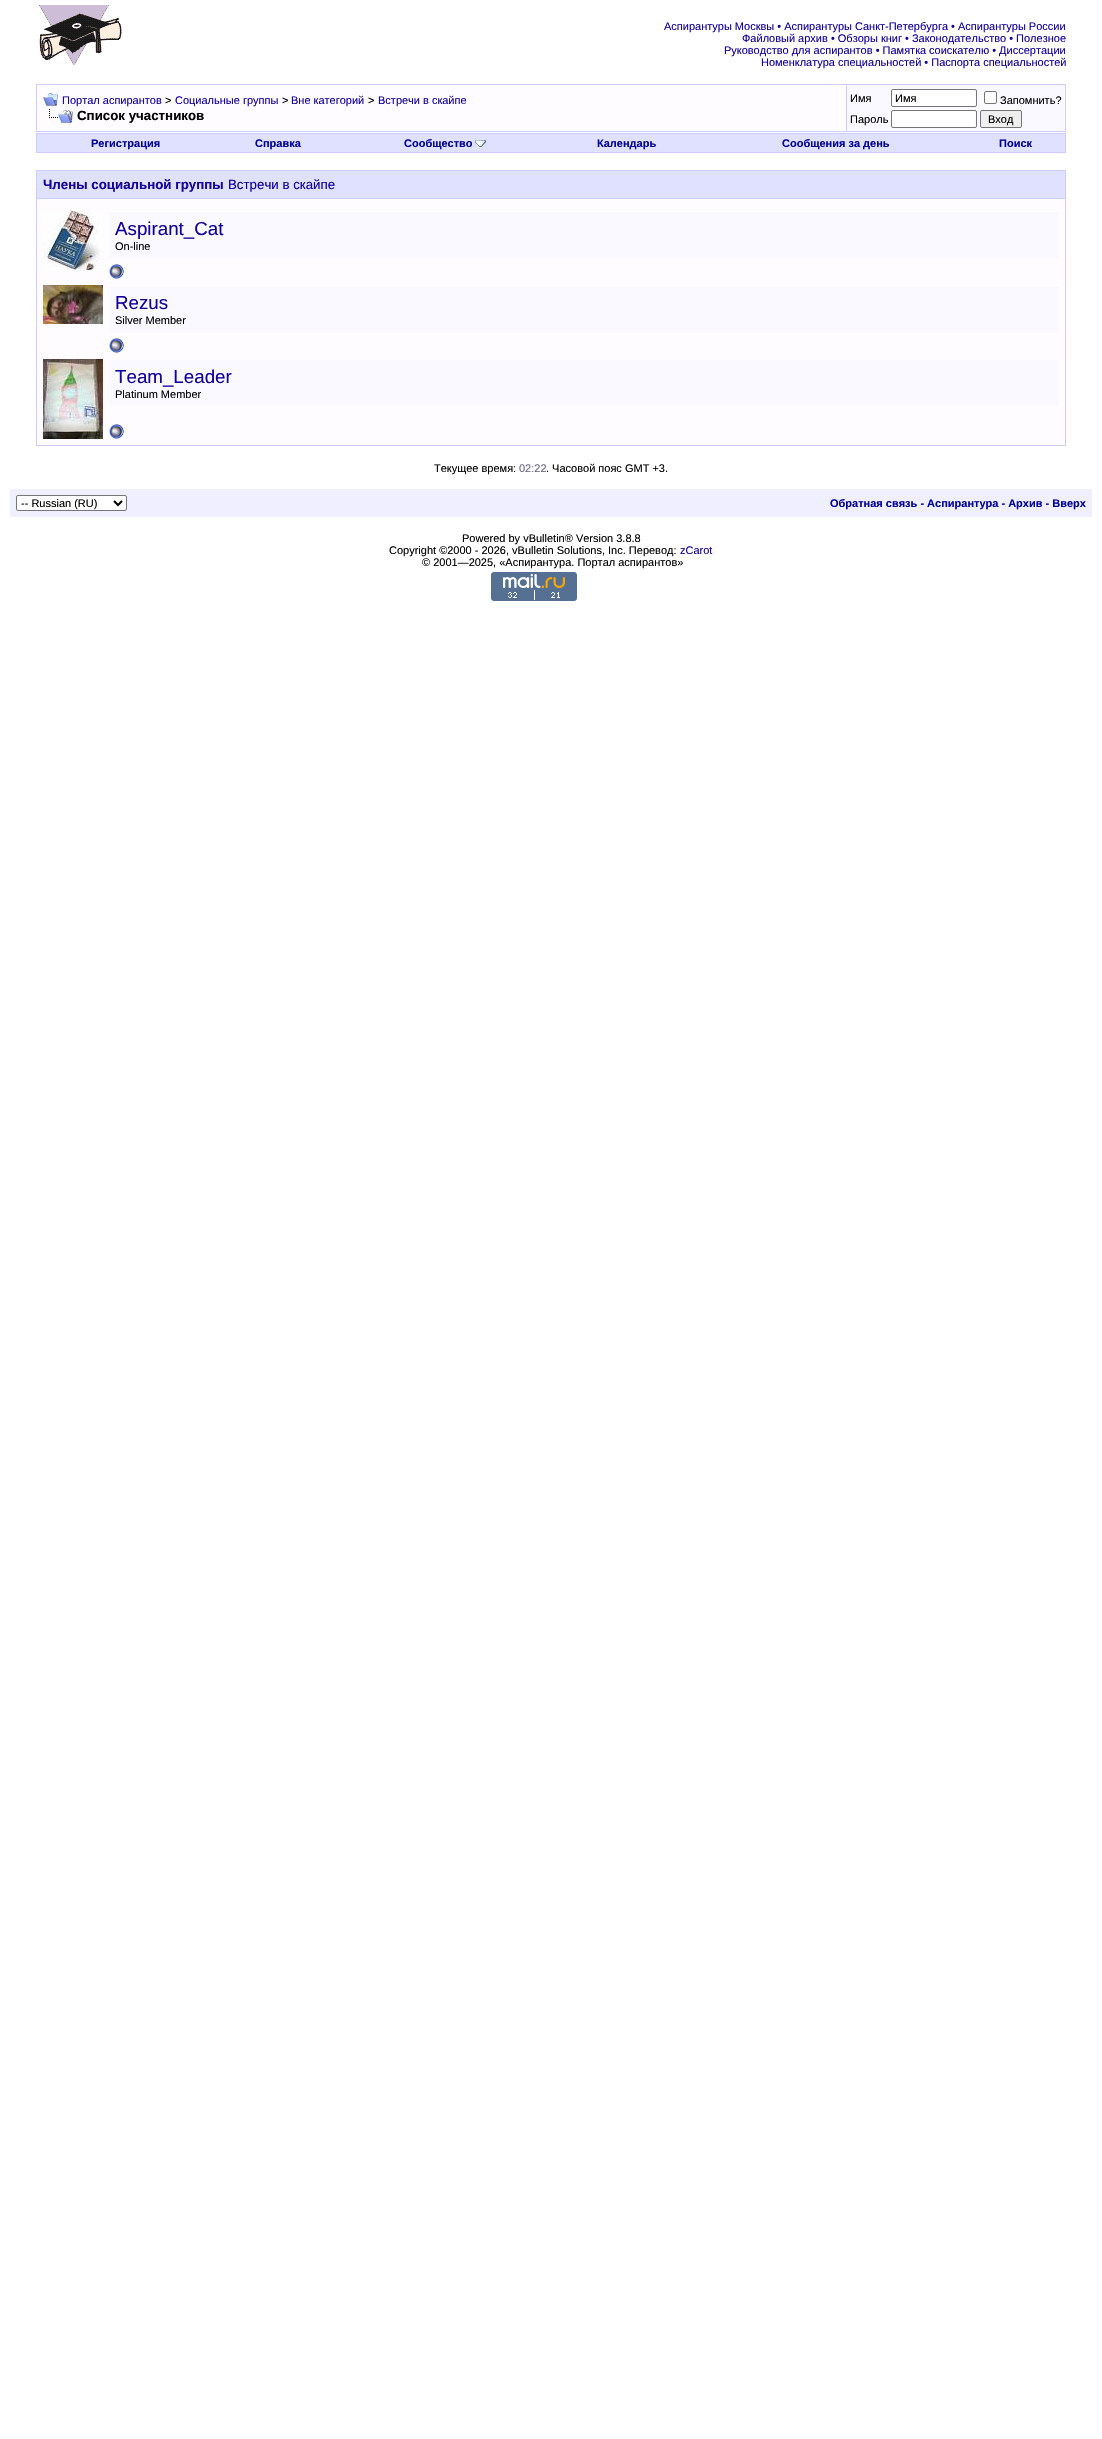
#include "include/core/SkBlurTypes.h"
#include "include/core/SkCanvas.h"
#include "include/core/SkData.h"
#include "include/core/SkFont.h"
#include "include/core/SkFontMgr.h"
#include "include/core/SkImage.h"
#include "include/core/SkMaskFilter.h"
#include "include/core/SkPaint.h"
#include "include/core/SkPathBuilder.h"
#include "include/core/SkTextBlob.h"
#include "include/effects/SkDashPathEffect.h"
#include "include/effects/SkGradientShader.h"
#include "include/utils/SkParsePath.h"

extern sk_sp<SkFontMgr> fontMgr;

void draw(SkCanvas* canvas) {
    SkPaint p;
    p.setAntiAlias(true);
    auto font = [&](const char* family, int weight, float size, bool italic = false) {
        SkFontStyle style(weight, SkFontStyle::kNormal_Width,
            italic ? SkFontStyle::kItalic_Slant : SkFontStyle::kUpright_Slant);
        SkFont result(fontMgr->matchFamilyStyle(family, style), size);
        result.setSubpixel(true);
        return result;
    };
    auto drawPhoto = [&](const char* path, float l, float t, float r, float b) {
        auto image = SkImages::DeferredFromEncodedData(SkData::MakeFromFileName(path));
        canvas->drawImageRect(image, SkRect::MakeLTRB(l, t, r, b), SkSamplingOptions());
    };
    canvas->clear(0xFFFFFFFF);
    drawPhoto("media/1.png", 39, 5, 122, 65);
    auto font1 = font("Liberation Sans", 400, 11);
    p.setColor(0xFF110099);
    {
        const struct { const char* s; float x, y; } items[] = {
            {"Аспирантуры Москвы • Аспирантуры Санкт-Петербурга • Аспирантуры России", 664, 30},
            {"Файловый архив • Обзоры книг • Законодательство • Полезное", 742, 42},
            {"Руководство для аспирантов • Памятка соискателю • Диссертации", 724, 54},
            {"Номенклатура специальностей • Паспорта специальностей", 761, 66},
        };
        for (auto [s, x, y] : items) {
            canvas->drawString(s, x, y, font1, p);
        }
    }
    p.setColor(0xFFCCCCFF);
    canvas->drawRect(SkRect::MakeLTRB(36, 84, 1066, 132), p);
    p.setColor(0xFFFEFCFF);
    canvas->drawRect(SkRect::MakeLTRB(37, 85, 846, 131), p);
    drawPhoto("media/2.png", 43, 93, 58, 106);
    p.setColor(0xFF110099);
    canvas->drawString("Портал аспирантов", 62, 104, font1, p);
    p.setColor(0xFF000000);
    canvas->drawString(">", 165, 104, font1, p);
    p.setColor(0xFF110099);
    canvas->drawString("Социальные группы", 175, 104, font1, p);
    p.setColor(0xFF000000);
    canvas->drawString(">", 282, 104, font1, p);
    p.setColor(0xFF110099);
    canvas->drawString("Вне категорий", 291, 104, font1, p);
    p.setColor(0xFF000000);
    canvas->drawString(">", 368, 104, font1, p);
    p.setColor(0xFF110099);
    canvas->drawString("Встречи в скайпе", 378, 104, font1, p);
    drawPhoto("media/3.png", 49, 109, 73, 123);
    auto font2 = font("Liberation Sans", 700, 13.3f);
    p.setColor(0xFF000000);
    canvas->drawString("Список участников", 77, 120, font2, p);
    p.setColor(0xFFF9F9FF);
    canvas->drawRect(SkRect::MakeLTRB(847, 85, 1065, 131), p);
    p.setColor(0xFF000000);
    canvas->drawString("Имя", 850, 102, font1, p);
    p.setColor(0xFFFFFFFF);
    canvas->drawRoundRect(SkRect::MakeLTRB(891.5f, 89.5f, 976.5f, 106.5f), 1.5f, 1.5f, p);
    p.setStyle(SkPaint::kStroke_Style);
    p.setStrokeWidth(1);
    p.setColor(0xFF767676);
    canvas->drawRoundRect(SkRect::MakeLTRB(891.5f, 89.5f, 976.5f, 106.5f), 1.5f, 1.5f, p);
    p.setStyle(SkPaint::kFill_Style);
    p.setColor(0xFF000000);
    canvas->drawString("Имя", 895, 102, font1, p);
    p.setColor(0xFFFFFFFF);
    canvas->drawRoundRect(SkRect::MakeLTRB(984.5f, 91.5f, 996.5f, 103.5f), 1.5f, 1.5f, p);
    p.setStyle(SkPaint::kStroke_Style);
    p.setColor(0xFF767676);
    canvas->drawRoundRect(SkRect::MakeLTRB(984.5f, 91.5f, 996.5f, 103.5f), 1.5f, 1.5f, p);
    p.setStyle(SkPaint::kFill_Style);
    p.setColor(0xFF000000);
    canvas->drawString("Запомнить?", 1000, 104, font1, p);
    canvas->drawString("Пароль", 850, 123, font1, p);
    p.setColor(0xFFFFFFFF);
    canvas->drawRoundRect(SkRect::MakeLTRB(891.5f, 110.5f, 976.5f, 127.5f), 1.5f, 1.5f, p);
    p.setStyle(SkPaint::kStroke_Style);
    p.setColor(0xFF767676);
    canvas->drawRoundRect(SkRect::MakeLTRB(891.5f, 110.5f, 976.5f, 127.5f), 1.5f, 1.5f, p);
    p.setStyle(SkPaint::kFill_Style);
    p.setColor(0xFFEFEFEF);
    canvas->drawRoundRect(SkRect::MakeLTRB(980.5f, 110.5f, 1021.5f, 127.5f), 1.5f, 1.5f, p);
    p.setStyle(SkPaint::kStroke_Style);
    p.setColor(0xFF767676);
    canvas->drawRoundRect(SkRect::MakeLTRB(980.5f, 110.5f, 1021.5f, 127.5f), 1.5f, 1.5f, p);
    p.setStyle(SkPaint::kFill_Style);
    p.setColor(0xFF000000);
    canvas->drawString("Вход", 988, 123, font1, p);
    p.setColor(0xFFCCCCFF);
    canvas->drawRect(SkRect::MakeLTRB(36, 133, 1066, 153), p);
    p.setColor(0xFFE0E0FF);
    canvas->drawRect(SkRect::MakeLTRB(37, 134, 1065, 152), p);
    auto font3 = font("Liberation Sans", 700, 11);
    p.setColor(0xFF000099);
    {
        const struct { const char* s; float x, y; } items[] = {
            {"Регистрация", 91, 147},
            {"Справка", 255, 147},
            {"Сообщество", 404, 147},
        };
        for (auto [s, x, y] : items) {
            canvas->drawString(s, x, y, font3, p);
        }
    }
    drawPhoto("media/4.png", 475, 140, 486, 147);
    {
        const struct { const char* s; float x, y; } items[] = {
            {"Календарь", 597, 147},
            {"Сообщения за день", 782, 147},
            {"Поиск", 999, 147},
        };
        for (auto [s, x, y] : items) {
            canvas->drawString(s, x, y, font3, p);
        }
    }
    p.setColor(0xFFCCCCFF);
    canvas->drawRect(SkRect::MakeLTRB(36, 170, 1066, 446), p);
    p.setColor(0xFFE0E0FF);
    canvas->drawRect(SkRect::MakeLTRB(37, 171, 1065, 198), p);
    p.setColor(0xFF110099);
    canvas->drawString("Члены социальной группы", 43, 189, font2, p);
    auto font4 = font("Liberation Sans", 400, 13.3f);
    canvas->drawString("Встречи в скайпе", 228, 189, font4, p);
    p.setColor(0xFFFEFCFF);
    canvas->drawRect(SkRect::MakeLTRB(37, 199, 1065, 445), p);
    drawPhoto("media/5.png", 43, 211, 103, 271);
    p.setColor(0xFFFFFFFF);
    canvas->drawRect(SkRect::MakeLTRB(109, 211, 1059, 212), p);
    p.setColor(0xFFF9F9FF);
    canvas->drawRect(SkRect::MakeLTRB(109, 212, 1059, 258), p);
    auto font5 = font("Liberation Sans", 400, 18.75f);
    p.setColor(0xFF110099);
    canvas->drawString("Aspirant_Cat", 115, 235, font5, p);
    p.setColor(0xFF000000);
    canvas->drawString("On-line", 115, 250, font1, p);
    drawPhoto("media/6.png", 109, 264, 124, 279);
    drawPhoto("media/7.png", 43, 285, 103, 324);
    p.setColor(0xFFFFFFFF);
    canvas->drawRect(SkRect::MakeLTRB(109, 285, 1059, 286), p);
    p.setColor(0xFFF9F9FF);
    canvas->drawRect(SkRect::MakeLTRB(109, 286, 1059, 332), p);
    p.setColor(0xFF110099);
    canvas->drawString("Rezus", 115, 309, font5, p);
    p.setColor(0xFF000000);
    canvas->drawString("Silver Member", 115, 324, font1, p);
    drawPhoto("media/6.png", 109, 338, 124, 353);
    drawPhoto("media/8.png", 43, 359, 103, 439);
    p.setColor(0xFFFFFFFF);
    canvas->drawRect(SkRect::MakeLTRB(109, 359, 1059, 360), p);
    p.setColor(0xFFF9F9FF);
    canvas->drawRect(SkRect::MakeLTRB(109, 360, 1059, 406), p);
    p.setColor(0xFF110099);
    canvas->drawString("Team_Leader", 115, 383, font5, p);
    p.setColor(0xFF000000);
    canvas->drawString("Platinum Member", 115, 398, font1, p);
    drawPhoto("media/6.png", 109, 424, 124, 439);
    canvas->drawString("Текущее время:", 434, 472, font1, p);
    p.setColor(0xFF666686);
    canvas->drawString("02:22", 519, 472, font1, p);
    p.setColor(0xFF000000);
    canvas->drawString(". Часовой пояс GMT +3.", 546, 472, font1, p);
    p.setColor(0xFFEFEFFF);
    canvas->drawRect(SkRect::MakeLTRB(10, 489, 1092, 517), p);
    p.setColor(0xFFFFFFFF);
    canvas->drawRoundRect(SkRect::MakeLTRB(16.5f, 495.5f, 126.5f, 510.5f), 1.5f, 1.5f, p);
    p.setStyle(SkPaint::kStroke_Style);
    p.setColor(0xFF767676);
    canvas->drawRoundRect(SkRect::MakeLTRB(16.5f, 495.5f, 126.5f, 510.5f), 1.5f, 1.5f, p);
    p.setStrokeWidth(2);
    p.setColor(0xFF000000);
    canvas->drawPath(SkPathBuilder().moveTo(114, 501).lineTo(118, 505).lineTo(122, 501).detach(), p);
    p.setStyle(SkPaint::kFill_Style);
    canvas->drawString("-- Russian (RU)", 21, 507, font1, p);
    p.setColor(0xFF000099);
    canvas->drawString("Обратная связь - Аспирантура - Архив - Вверх", 830, 507, font3, p);
    p.setColor(0xFF000000);
    canvas->drawString("Powered by vBulletin® Version 3.8.8", 462, 542, font1, p);
    canvas->drawString("Copyright ©2000 - 2026, vBulletin Solutions, Inc. Перевод:", 389, 554, font1, p);
    p.setColor(0xFF110099);
    canvas->drawString("zCarot", 680, 554, font1, p);
    p.setColor(0xFF000000);
    canvas->drawString("© 2001—2025, «Аспирантура. Портал аспирантов»", 422, 566, font1, p);
    drawPhoto("media/9.png", 491, 572, 577, 601);
}
